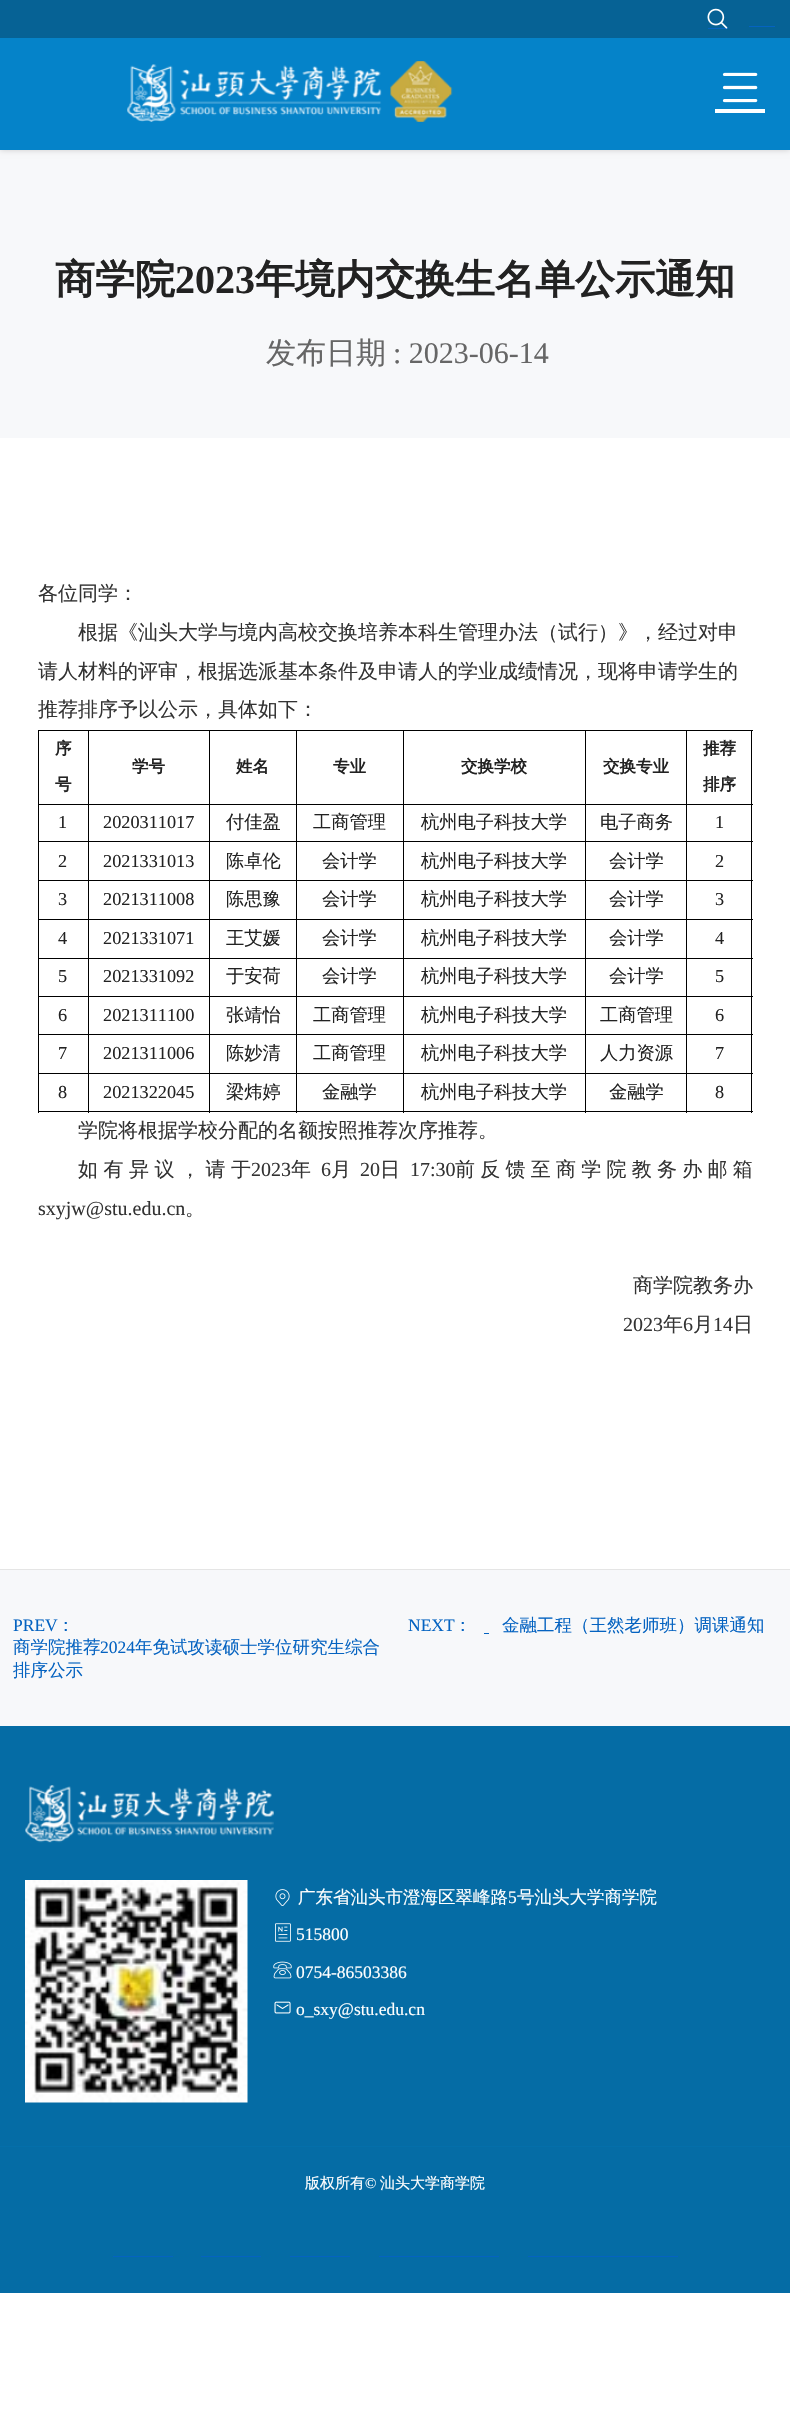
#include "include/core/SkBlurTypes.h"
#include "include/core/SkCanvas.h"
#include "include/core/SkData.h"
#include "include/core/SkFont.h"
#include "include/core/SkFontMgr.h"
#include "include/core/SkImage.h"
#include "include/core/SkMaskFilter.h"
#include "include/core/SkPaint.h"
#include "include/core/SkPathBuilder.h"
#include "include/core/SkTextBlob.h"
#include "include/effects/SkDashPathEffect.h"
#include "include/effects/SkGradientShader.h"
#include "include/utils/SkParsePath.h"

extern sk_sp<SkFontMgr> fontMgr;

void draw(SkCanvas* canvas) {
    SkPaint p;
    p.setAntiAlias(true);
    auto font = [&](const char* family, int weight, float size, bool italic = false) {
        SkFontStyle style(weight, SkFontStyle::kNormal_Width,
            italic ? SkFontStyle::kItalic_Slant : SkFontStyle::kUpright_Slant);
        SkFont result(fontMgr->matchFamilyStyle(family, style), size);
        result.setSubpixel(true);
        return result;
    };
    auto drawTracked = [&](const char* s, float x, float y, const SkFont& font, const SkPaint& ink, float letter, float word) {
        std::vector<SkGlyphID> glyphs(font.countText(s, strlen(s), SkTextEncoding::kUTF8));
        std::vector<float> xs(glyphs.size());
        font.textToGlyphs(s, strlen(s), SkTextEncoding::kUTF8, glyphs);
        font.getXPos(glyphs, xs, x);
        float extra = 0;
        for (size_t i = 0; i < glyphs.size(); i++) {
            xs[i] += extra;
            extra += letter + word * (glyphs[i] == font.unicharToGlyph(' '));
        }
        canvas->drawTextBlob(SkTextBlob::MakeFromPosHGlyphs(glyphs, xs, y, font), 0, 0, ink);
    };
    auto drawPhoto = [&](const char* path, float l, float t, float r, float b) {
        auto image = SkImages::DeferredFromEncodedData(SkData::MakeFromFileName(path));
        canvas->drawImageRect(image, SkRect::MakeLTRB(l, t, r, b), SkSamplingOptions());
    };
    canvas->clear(0xFFFFFFFF);
    p.setColor(0xFFF7F8FA);
    canvas->drawRect(SkRect::MakeLTRB(0, 150, 790, 438), p);
    p.setColor(0xFFCCCCCC);
    p.setMaskFilter(SkMaskFilter::MakeBlur(kNormal_SkBlurStyle, 3));
    canvas->drawRect(SkRect::MakeLTRB(0, 0, 790, 150), p);
    p.setMaskFilter(nullptr);
    {
        const struct { float l, t, r, b; SkColor color; } items[] = {
            {0, 38, 790, 150, 0xFF0583C9},
            {0, 0, 790, 38, 0xFF066295},
            {708, 28, 728, 29, 0xFF0563C1},
        };
        for (auto [l, t, r, b, color] : items) {
            p.setColor(color);
            canvas->drawRect(SkRect::MakeLTRB(l, t, r, b), p);
        }
    }
    drawPhoto("media/1.png", 707, 8, 728, 29);
    canvas->drawRect(SkRect::MakeLTRB(749, 26, 775, 27), p);
    drawPhoto("media/2.png", 127, 61, 453, 122);
    drawPhoto("media/3.png", 722, 72, 758, 103);
    p.setColor(0xFFFFFFFF);
    canvas->drawRect(SkRect::MakeLTRB(715, 109, 765, 113), p);
    auto font1 = font("WenQuanYi Zen Hei", 700, 40);
    p.setColor(0xFF222222);
    canvas->drawString("商学院", 55, 293, font1, p);
    auto font2 = font("Liberation Serif", 700, 40);
    canvas->drawString("2023", 175, 293, font2, p);
    canvas->drawString("年境内交换生名单公示通知", 255, 293, font1, p);
    auto font3 = font("WenQuanYi Zen Hei", 500, 30);
    p.setColor(0xFF666666);
    canvas->drawString("发布日期", 266, 363, font3, p);
    auto font4 = font("Liberation Serif", 400, 30);
    canvas->drawString(": 2023-06-14", 393, 363, font4, p);
    auto font5 = font("WenQuanYi Zen Hei", 500, 20);
    p.setColor(0xFF333333);
    {
        const struct { const char* s; float x, y; } items[] = {
            {"各位同学：", 38, 600},
            {"根据《汕头大学与境内高校交换培养本科生管理办法（试行）》，经过对申", 78, 639},
            {"请人材料的评审，根据选派基本条件及申请人的学业成绩情况，现将申请学生的", 38, 678},
            {"推荐排序予以公示，具体如下：", 38, 716},
        };
        for (auto [s, x, y] : items) {
            canvas->drawString(s, x, y, font5, p);
        }
    }
    {
        const struct { float l, t, r, b; SkColor color; } items[] = {
            {38, 730, 753, 731, 0xFF000000},
            {751, 804, 752, 1113, 0xFF000000},
            {751, 730, 752, 805, 0xFF000000},
            {686, 1111, 753, 1112, 0xFF000000},
            {686, 1073, 687, 1113, 0xFF000000},
            {686, 1073, 753, 1074, 0xFF000000},
            {686, 1034, 687, 1074, 0xFF000000},
            {686, 1034, 753, 1035, 0xFF000000},
            {686, 996, 687, 1035, 0xFF000000},
            {686, 996, 753, 997, 0xFF000000},
            {686, 958, 687, 998, 0xFF000000},
            {686, 958, 753, 959, 0xFF000000},
            {686, 919, 687, 959, 0xFF000000},
            {686, 919, 753, 920, 0xFF000000},
            {686, 880, 687, 920, 0xFF000000},
            {686, 880, 753, 881, 0xFF000000},
            {686, 841, 687, 881, 0xFF000000},
            {686, 841, 753, 842, 0xFF000000},
            {686, 804, 687, 843, 0xFF000000},
            {686, 804, 753, 805, 0xFF000000},
            {686, 730, 687, 805, 0xFF000000},
            {585, 1111, 688, 1112, 0xFF000000},
            {585, 1073, 586, 1113, 0xFF000000},
            {585, 1073, 688, 1074, 0xFF000000},
            {585, 1034, 586, 1074, 0xFF000000},
            {585, 1034, 688, 1035, 0xFF000000},
            {585, 996, 586, 1035, 0xFF000000},
            {585, 996, 688, 997, 0xFF000000},
            {585, 958, 586, 998, 0xFF000000},
            {585, 958, 688, 959, 0xFF000000},
            {585, 919, 586, 959, 0xFF000000},
            {585, 919, 688, 920, 0xFF000000},
            {585, 880, 586, 920, 0xFF000000},
            {585, 880, 688, 881, 0xFF000000},
            {585, 841, 586, 881, 0xFF000000},
            {585, 841, 688, 842, 0xFF000000},
            {585, 804, 586, 843, 0xFF000000},
            {585, 804, 688, 805, 0xFF000000},
            {585, 730, 586, 805, 0xFF000000},
            {403, 1111, 586, 1112, 0xFF000000},
            {403, 1073, 404, 1113, 0xFF000000},
            {403, 1073, 586, 1074, 0xFF000000},
            {403, 1034, 404, 1074, 0xFF000000},
            {403, 1034, 586, 1035, 0xFF000000},
            {403, 996, 404, 1035, 0xFF000000},
            {403, 996, 586, 997, 0xFF000000},
            {403, 958, 404, 998, 0xFF000000},
            {403, 958, 586, 959, 0xFF000000},
            {403, 919, 404, 959, 0xFF000000},
            {403, 919, 586, 920, 0xFF000000},
            {403, 880, 404, 920, 0xFF000000},
            {403, 880, 586, 881, 0xFF000000},
            {403, 841, 404, 881, 0xFF000000},
            {403, 841, 586, 842, 0xFF000000},
            {403, 804, 404, 843, 0xFF000000},
            {403, 804, 586, 805, 0xFF000000},
            {403, 730, 404, 805, 0xFF000000},
            {296, 1111, 404, 1112, 0xFF000000},
            {296, 1073, 297, 1113, 0xFF000000},
            {296, 1073, 404, 1074, 0xFF000000},
            {296, 1034, 297, 1074, 0xFF000000},
            {296, 1034, 404, 1035, 0xFF000000},
            {296, 996, 297, 1035, 0xFF000000},
            {296, 996, 404, 997, 0xFF000000},
            {296, 958, 297, 998, 0xFF000000},
            {296, 958, 404, 959, 0xFF000000},
            {296, 919, 297, 959, 0xFF000000},
            {296, 919, 404, 920, 0xFF000000},
            {296, 880, 297, 920, 0xFF000000},
            {296, 880, 404, 881, 0xFF000000},
            {296, 841, 297, 881, 0xFF000000},
            {296, 841, 404, 842, 0xFF000000},
            {296, 804, 297, 843, 0xFF000000},
            {296, 804, 404, 805, 0xFF000000},
            {296, 730, 297, 805, 0xFF000000},
            {209, 1111, 298, 1112, 0xFF000000},
            {209, 1073, 210, 1113, 0xFF000000},
            {209, 1073, 298, 1074, 0xFF000000},
            {209, 1034, 210, 1074, 0xFF000000},
            {209, 1034, 298, 1035, 0xFF000000},
            {209, 996, 210, 1035, 0xFF000000},
            {209, 996, 298, 997, 0xFF000000},
            {209, 958, 210, 998, 0xFF000000},
            {209, 958, 298, 959, 0xFF000000},
            {209, 919, 210, 959, 0xFF000000},
            {209, 919, 298, 920, 0xFF000000},
            {209, 880, 210, 920, 0xFF000000},
            {209, 880, 298, 881, 0xFF000000},
            {209, 841, 210, 881, 0xFF000000},
            {209, 841, 298, 842, 0xFF000000},
            {209, 804, 210, 843, 0xFF000000},
            {209, 804, 298, 805, 0xFF000000},
            {209, 730, 210, 805, 0xFF000000},
            {88, 1111, 210, 1112, 0xFF000000},
            {88, 1073, 89, 1113, 0xFF000000},
            {88, 1073, 210, 1074, 0xFF000000},
            {88, 1034, 89, 1074, 0xFF000000},
            {88, 1034, 210, 1035, 0xFF000000},
            {88, 996, 89, 1035, 0xFF000000},
            {88, 996, 210, 997, 0xFF000000},
            {88, 958, 89, 998, 0xFF000000},
            {88, 958, 210, 959, 0xFF000000},
            {88, 919, 89, 959, 0xFF000000},
            {88, 919, 210, 920, 0xFF000000},
            {88, 880, 89, 920, 0xFF000000},
            {88, 880, 210, 881, 0xFF000000},
            {88, 841, 89, 881, 0xFF000000},
            {88, 841, 210, 842, 0xFF000000},
            {88, 804, 89, 843, 0xFF000000},
            {88, 804, 210, 805, 0xFF000000},
            {88, 730, 89, 805, 0xFF000000},
            {38, 1111, 89, 1112, 0xFF000000},
            {38, 1073, 39, 1113, 0xFF000000},
            {38, 1073, 89, 1074, 0xFF000000},
            {38, 1034, 39, 1074, 0xFF000000},
            {38, 1034, 89, 1035, 0xFF000000},
            {38, 996, 39, 1035, 0xFF000000},
            {38, 996, 89, 997, 0xFF000000},
            {38, 958, 39, 998, 0xFF000000},
            {38, 958, 89, 959, 0xFF000000},
            {38, 919, 39, 959, 0xFF000000},
            {38, 919, 89, 920, 0xFF000000},
            {38, 880, 39, 920, 0xFF000000},
            {38, 880, 89, 881, 0xFF000000},
            {38, 841, 39, 881, 0xFF000000},
            {38, 841, 89, 842, 0xFF000000},
            {38, 804, 39, 843, 0xFF000000},
            {38, 804, 89, 805, 0xFF000000},
            {38, 730, 39, 805, 0xFF000000},
        };
        for (auto [l, t, r, b, color] : items) {
            p.setColor(color);
            canvas->drawRect(SkRect::MakeLTRB(l, t, r, b), p);
        }
    }
    auto font6 = font("WenQuanYi Zen Hei", 700, 16.5f);
    p.setColor(0xFF222222);
    {
        const struct { const char* s; float x, y; } items[] = {
            {"序", 55, 754},
            {"号", 55, 790},
            {"学号", 132, 772},
            {"姓名", 236, 772},
            {"专业", 333, 772},
            {"交换学校", 461, 772},
            {"交换专业", 603, 772},
            {"推荐", 703, 754},
            {"排序", 703, 790},
        };
        for (auto [s, x, y] : items) {
            canvas->drawString(s, x, y, font6, p);
        }
    }
    auto font7 = font("Liberation Serif", 400, 18.25f);
    canvas->drawString("1", 58, 828, font7, p);
    canvas->drawString("2020311017", 103, 828, font7, p);
    auto font8 = font("WenQuanYi Zen Hei", 500, 18.25f);
    {
        const struct { const char* s; float x, y; } items[] = {
            {"付佳盈", 226, 828},
            {"工商管理", 313, 828},
            {"杭州电子科技大学", 421, 828},
            {"电子商务", 600, 828},
        };
        for (auto [s, x, y] : items) {
            canvas->drawString(s, x, y, font8, p);
        }
    }
    {
        const struct { const char* s; float x, y; } items[] = {
            {"1", 715, 828},
            {"2", 58, 867},
            {"2021331013", 103, 867},
        };
        for (auto [s, x, y] : items) {
            canvas->drawString(s, x, y, font7, p);
        }
    }
    {
        const struct { const char* s; float x, y; } items[] = {
            {"陈卓伦", 226, 867},
            {"会计学", 322, 867},
            {"杭州电子科技大学", 421, 867},
            {"会计学", 609, 867},
        };
        for (auto [s, x, y] : items) {
            canvas->drawString(s, x, y, font8, p);
        }
    }
    {
        const struct { const char* s; float x, y; } items[] = {
            {"2", 715, 867},
            {"3", 58, 905},
            {"2021311008", 103, 905},
        };
        for (auto [s, x, y] : items) {
            canvas->drawString(s, x, y, font7, p);
        }
    }
    {
        const struct { const char* s; float x, y; } items[] = {
            {"陈思豫", 226, 905},
            {"会计学", 322, 905},
            {"杭州电子科技大学", 421, 905},
            {"会计学", 609, 905},
        };
        for (auto [s, x, y] : items) {
            canvas->drawString(s, x, y, font8, p);
        }
    }
    {
        const struct { const char* s; float x, y; } items[] = {
            {"3", 715, 905},
            {"4", 58, 944},
            {"2021331071", 103, 944},
        };
        for (auto [s, x, y] : items) {
            canvas->drawString(s, x, y, font7, p);
        }
    }
    {
        const struct { const char* s; float x, y; } items[] = {
            {"王艾媛", 226, 944},
            {"会计学", 322, 944},
            {"杭州电子科技大学", 421, 944},
            {"会计学", 609, 944},
        };
        for (auto [s, x, y] : items) {
            canvas->drawString(s, x, y, font8, p);
        }
    }
    {
        const struct { const char* s; float x, y; } items[] = {
            {"4", 715, 944},
            {"5", 58, 982},
            {"2021331092", 103, 982},
        };
        for (auto [s, x, y] : items) {
            canvas->drawString(s, x, y, font7, p);
        }
    }
    {
        const struct { const char* s; float x, y; } items[] = {
            {"于安荷", 226, 982},
            {"会计学", 322, 982},
            {"杭州电子科技大学", 421, 982},
            {"会计学", 609, 982},
        };
        for (auto [s, x, y] : items) {
            canvas->drawString(s, x, y, font8, p);
        }
    }
    {
        const struct { const char* s; float x, y; } items[] = {
            {"5", 715, 982},
            {"6", 58, 1021},
            {"2021311100", 103, 1021},
        };
        for (auto [s, x, y] : items) {
            canvas->drawString(s, x, y, font7, p);
        }
    }
    {
        const struct { const char* s; float x, y; } items[] = {
            {"张靖怡", 226, 1021},
            {"工商管理", 313, 1021},
            {"杭州电子科技大学", 421, 1021},
            {"工商管理", 600, 1021},
        };
        for (auto [s, x, y] : items) {
            canvas->drawString(s, x, y, font8, p);
        }
    }
    {
        const struct { const char* s; float x, y; } items[] = {
            {"6", 715, 1021},
            {"7", 58, 1059},
            {"2021311006", 103, 1059},
        };
        for (auto [s, x, y] : items) {
            canvas->drawString(s, x, y, font7, p);
        }
    }
    {
        const struct { const char* s; float x, y; } items[] = {
            {"陈妙清", 226, 1059},
            {"工商管理", 313, 1059},
            {"杭州电子科技大学", 421, 1059},
            {"人力资源", 600, 1059},
        };
        for (auto [s, x, y] : items) {
            canvas->drawString(s, x, y, font8, p);
        }
    }
    {
        const struct { const char* s; float x, y; } items[] = {
            {"7", 715, 1059},
            {"8", 58, 1098},
            {"2021322045", 103, 1098},
        };
        for (auto [s, x, y] : items) {
            canvas->drawString(s, x, y, font7, p);
        }
    }
    {
        const struct { const char* s; float x, y; } items[] = {
            {"梁炜婷", 226, 1098},
            {"金融学", 322, 1098},
            {"杭州电子科技大学", 421, 1098},
            {"金融学", 609, 1098},
        };
        for (auto [s, x, y] : items) {
            canvas->drawString(s, x, y, font8, p);
        }
    }
    canvas->drawString("8", 715, 1098, font7, p);
    p.setColor(0xFF333333);
    canvas->drawString("学院将根据学校分配的名额按照推荐次序推荐。", 78, 1137, font5, p);
    drawTracked("如有异议，请于", 78, 1176, font5, p, 5.5f, 0);
    auto font9 = font("Liberation Serif", 400, 20);
    canvas->drawString("2023", 251, 1176, font9, p);
    canvas->drawString("年", 291, 1176, font5, p);
    canvas->drawString("6", 321, 1176, font9, p);
    canvas->drawString("月", 331, 1176, font5, p);
    canvas->drawString("20", 360, 1176, font9, p);
    canvas->drawString("日", 380, 1176, font5, p);
    canvas->drawString("17:30", 410, 1176, font9, p);
    drawTracked("前反馈至商学院教务办邮箱", 455, 1176, font5, p, 5.25f, 0);
    canvas->drawString("sxyjw@stu.edu.cn", 38, 1215, font9, p);
    canvas->drawString("。", 185, 1215, font5, p);
    canvas->drawString("商学院教务办", 633, 1292, font5, p);
    canvas->drawString("2023", 623, 1331, font9, p);
    canvas->drawString("年", 663, 1331, font5, p);
    canvas->drawString("6", 683, 1331, font9, p);
    canvas->drawString("月", 693, 1331, font5, p);
    canvas->drawString("14", 713, 1331, font9, p);
    canvas->drawString("日", 733, 1331, font5, p);
    p.setColor(0xFFF7F8FA);
    canvas->drawRect(SkRect::MakeLTRB(0, 1570, 790, 1726), p);
    p.setColor(0xFFE5E5E5);
    canvas->drawRect(SkRect::MakeLTRB(0, 1569, 790, 1570), p);
    auto font10 = font("Liberation Serif", 400, 17.5f);
    p.setColor(0xFF0563C1);
    canvas->drawString("PREV", 13, 1631, font10, p);
    auto font11 = font("WenQuanYi Zen Hei", 500, 17.5f);
    canvas->drawString("：", 57, 1631, font11, p);
    canvas->drawString("商学院推荐", 13, 1653, font11, p);
    canvas->drawString("2024", 100, 1653, font10, p);
    canvas->drawString("年免试攻读硕士学位研究生综合", 135, 1653, font11, p);
    canvas->drawString("排序公示", 13, 1676, font11, p);
    canvas->drawString("NEXT", 408, 1631, font10, p);
    canvas->drawString("：", 454, 1631, font11, p);
    canvas->drawString("金融工程（王然老师班）调课通知", 502, 1631, font11, p);
    {
        const struct { float l, t, r, b; SkColor color; } items[] = {
            {484, 1633, 489, 1634, 0xFF0563C1},
            {0, 1726, 790, 2293, 0xFF056CA5},
            {0, 2146, 790, 2147, 0xFF046FAA},
        };
        for (auto [l, t, r, b, color] : items) {
            p.setColor(color);
            canvas->drawRect(SkRect::MakeLTRB(l, t, r, b), p);
        }
    }
    drawPhoto("media/4.png", 25, 1785, 274, 1843);
    drawPhoto("media/5.png", 25, 1880, 248, 2103);
    drawPhoto("media/6.png", 275, 1889, 290, 1906);
    p.setColor(0xFFFFFFFF);
    canvas->drawString("广东省汕头市澄海区翠峰路", 298, 1903, font11, p);
    canvas->drawString("5", 508, 1903, font10, p);
    canvas->drawString("号汕头大学商学院", 517, 1903, font11, p);
    drawPhoto("media/7.png", 275, 1923, 291, 1942);
    canvas->drawString("515800", 296, 1940, font10, p);
    drawPhoto("media/8.png", 273, 1961, 292, 1979);
    canvas->drawString("0754-86503386", 296, 1978, font10, p);
    drawPhoto("media/9.png", 274, 2001, 291, 2014);
    canvas->drawString("o_sxy@stu.edu.cn", 296, 2015, font10, p);
    auto font12 = font("WenQuanYi Zen Hei", 500, 15);
    canvas->drawString("版权所有", 305, 2188, font12, p);
    auto font13 = font("Liberation Serif", 400, 15);
    canvas->drawString("©", 365, 2188, font13, p);
    canvas->drawString("汕头大学商学院", 380, 2188, font12, p);
    {
        const struct { float l, t, r, b; SkColor color; } items[] = {
            {113, 2256, 173, 2257, 0xFF0563C1},
            {201, 2256, 261, 2257, 0xFF0563C1},
            {290, 2256, 350, 2257, 0xFF0563C1},
            {379, 2256, 499, 2257, 0xFF0563C1},
            {528, 2256, 678, 2257, 0xFF0563C1},
        };
        for (auto [l, t, r, b, color] : items) {
            p.setColor(color);
            canvas->drawRect(SkRect::MakeLTRB(l, t, r, b), p);
        }
    }
}
